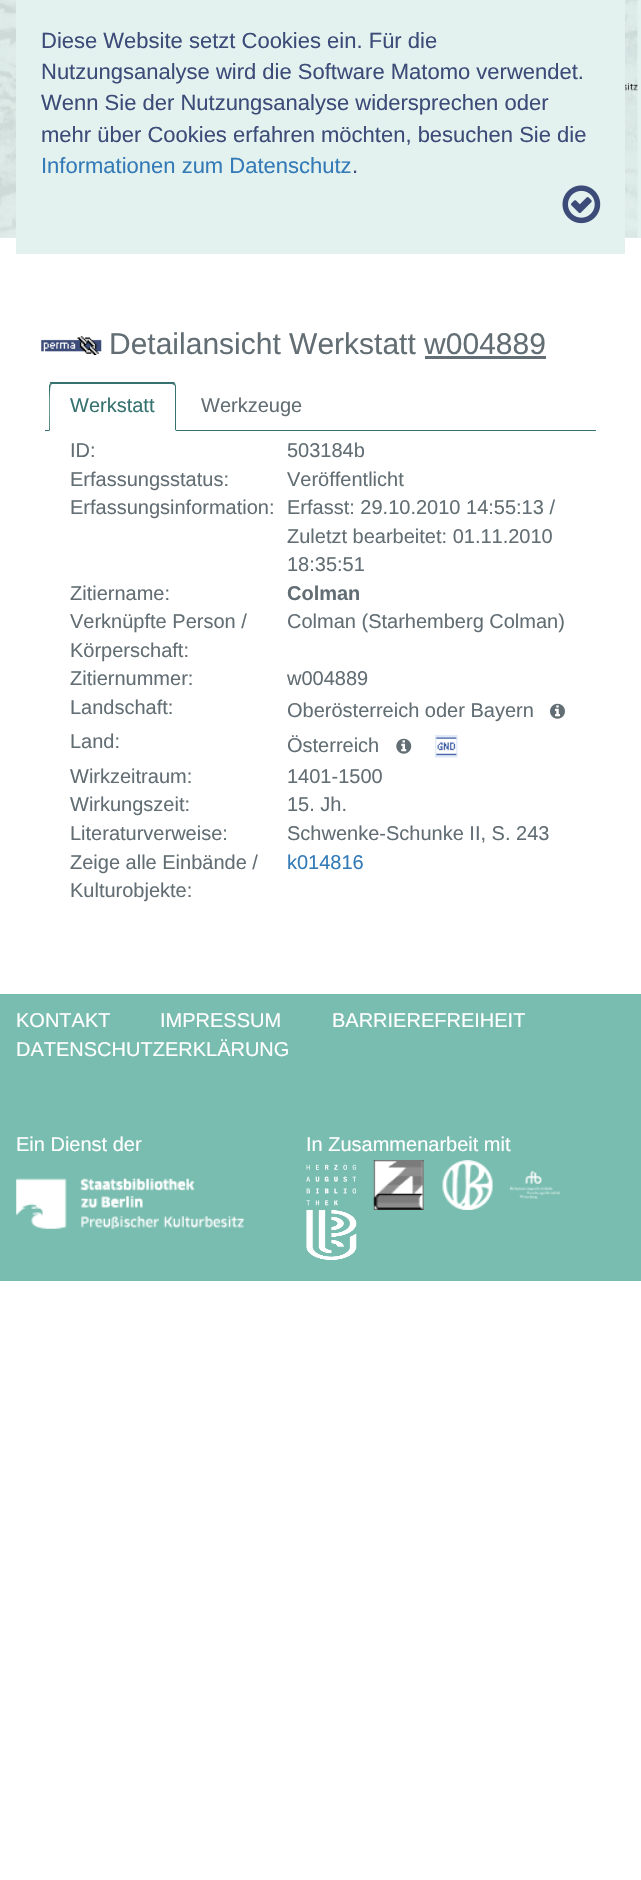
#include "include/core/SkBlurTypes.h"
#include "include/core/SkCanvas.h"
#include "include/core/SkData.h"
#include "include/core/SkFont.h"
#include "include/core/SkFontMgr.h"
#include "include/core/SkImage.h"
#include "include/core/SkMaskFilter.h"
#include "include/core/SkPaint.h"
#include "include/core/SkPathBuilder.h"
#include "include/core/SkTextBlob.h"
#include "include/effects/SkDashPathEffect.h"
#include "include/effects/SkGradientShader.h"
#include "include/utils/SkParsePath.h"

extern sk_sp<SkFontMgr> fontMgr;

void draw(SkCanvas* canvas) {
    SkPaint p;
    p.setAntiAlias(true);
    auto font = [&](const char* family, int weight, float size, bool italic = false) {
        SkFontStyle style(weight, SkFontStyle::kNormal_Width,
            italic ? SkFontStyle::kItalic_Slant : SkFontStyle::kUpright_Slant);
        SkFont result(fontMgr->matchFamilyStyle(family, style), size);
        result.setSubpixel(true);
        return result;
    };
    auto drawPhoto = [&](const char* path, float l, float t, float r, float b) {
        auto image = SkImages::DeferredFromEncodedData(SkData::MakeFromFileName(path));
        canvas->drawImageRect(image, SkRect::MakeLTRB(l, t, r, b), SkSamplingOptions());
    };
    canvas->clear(0xFFFFFFFF);
    p.setColor(0xFFE4F2EF);
    canvas->drawRect(SkRect::MakeLTRB(0, 0, 641, 238), p);
    drawPhoto("media/1.png", 0, 0, 638, 238);
    canvas->drawRect(SkRect::MakeLTRB(16, 0, 625, 254), p);
    auto font1 = font("Liberation Sans", 400, 22);
    p.setColor(0xFF3C4B78);
    {
        const struct { const char* s; float x, y; } items[] = {
            {"Diese Website setzt Cookies ein. Für die", 41, 48},
            {"Nutzungsanalyse wird die Software Matomo verwendet.", 41, 79},
            {"Wenn Sie der Nutzungsanalyse widersprechen oder", 41, 110},
            {"mehr über Cookies erfahren möchten, besuchen Sie die", 41, 142},
        };
        for (auto [s, x, y] : items) {
            canvas->drawString(s, x, y, font1, p);
        }
    }
    p.setColor(0xFF337AB7);
    canvas->drawString("Informationen zum Datenschutz", 41, 173, font1, p);
    p.setColor(0xFF3C4B78);
    canvas->drawString(".", 352, 173, font1, p);
    drawPhoto("media/2.png", 562, 185, 601, 224);
    drawPhoto("media/3.png", 625, 83, 638, 91);
    drawPhoto("media/4.png", 41, 336, 102, 355);
    auto font2 = font("Liberation Sans", 400, 30);
    p.setColor(0xFF626E74);
    canvas->drawString("Detailansicht Werkstatt w004889", 109, 354, font2, p);
    canvas->drawRect(SkRect::MakeLTRB(425, 356, 546, 359), p);
    p.setColor(0xFF367270);
    canvas->drawRect(SkRect::MakeLTRB(45, 430, 596, 431), p);
    p.setColor(0xFFFFFFFF);
    canvas->drawPath(SkPathBuilder().moveTo(53, 383).lineTo(172, 383).cubicTo(174, 383, 176, 385, 176, 387).lineTo(176, 431).lineTo(49, 431).lineTo(49, 387).cubicTo(49, 385, 51, 383, 53, 383).close().detach(), p);
    p.setColor(0xFF367270);
    canvas->drawPath(SkPathBuilder().moveTo(52, 384).lineTo(51, 385).lineTo(50, 383).lineTo(50, 382).lineTo(174, 382).lineTo(175, 383).lineTo(174, 385).lineTo(172, 384).close().detach(), p);
    canvas->drawPath(SkPathBuilder().moveTo(175, 383).lineTo(176, 386).lineTo(176, 431).lineTo(175, 430).lineTo(175, 386).lineTo(174, 385).close().detach(), p);
    p.setColor(0xFFFFFFFF);
    canvas->drawPath(SkPathBuilder().moveTo(176, 431).lineTo(175, 430).lineTo(50, 430).lineTo(49, 431).close().detach(), p);
    p.setColor(0xFF367270);
    canvas->drawPath(SkPathBuilder().moveTo(49, 431).lineTo(50, 430).cubicTo(50, 425, 49, 386, 51, 385).lineTo(50, 383).lineTo(49, 386).close().detach(), p);
    auto font3 = font("Liberation Sans", 400, 20);
    canvas->drawString("Werkstatt", 70, 412, font3, p);
    p.setColor(0xFF626E74);
    {
        const struct { const char* s; float x, y; } items[] = {
            {"Werkzeuge", 201, 412},
            {"ID:", 70, 457},
            {"503184b", 287, 457},
            {"Erfassungsstatus:", 70, 486},
            {"Veröffentlicht", 287, 486},
            {"Erfassungsinformation:", 70, 514},
            {"Erfasst: 29.10.2010 14:55:13 /", 287, 514},
            {"Zuletzt bearbeitet: 01.11.2010", 287, 543},
            {"18:35:51", 287, 571},
            {"Zitiername:", 70, 600},
        };
        for (auto [s, x, y] : items) {
            canvas->drawString(s, x, y, font3, p);
        }
    }
    auto font4 = font("Liberation Sans", 700, 20);
    canvas->drawString("Colman", 287, 600, font4, p);
    {
        const struct { const char* s; float x, y; } items[] = {
            {"Verknüpfte Person /", 70, 628},
            {"Körperschaft:", 70, 657},
            {"Colman (Starhemberg Colman)", 287, 628},
            {"Zitiernummer:", 70, 685},
            {"w004889", 287, 685},
            {"Landschaft:", 70, 714},
            {"Oberösterreich oder Bayern", 287, 717},
        };
        for (auto [s, x, y] : items) {
            canvas->drawString(s, x, y, font3, p);
        }
    }
    drawPhoto("media/5.png", 550, 703, 565, 719);
    canvas->drawString("Land:", 70, 748, font3, p);
    canvas->drawString("Österreich", 287, 752, font3, p);
    drawPhoto("media/6.png", 396, 738, 412, 754);
    drawPhoto("media/7.png", 435, 735, 458, 758);
    {
        const struct { const char* s; float x, y; } items[] = {
            {"Wirkzeitraum:", 70, 783},
            {"1401-1500", 287, 783},
            {"Wirkungszeit:", 70, 811},
            {"15. Jh.", 287, 811},
            {"Literaturverweise:", 70, 840},
            {"Schwenke-Schunke II, S. 243", 287, 840},
            {"Zeige alle Einbände /", 70, 869},
            {"Kulturobjekte:", 70, 897},
        };
        for (auto [s, x, y] : items) {
            canvas->drawString(s, x, y, font3, p);
        }
    }
    p.setColor(0xFF337AB7);
    canvas->drawString("k014816", 287, 869, font3, p);
    p.setColor(0xFF79BDB0);
    canvas->drawRect(SkRect::MakeLTRB(0, 994, 641, 1281), p);
    p.setColor(0xFFFFFFFF);
    {
        const struct { const char* s; float x, y; } items[] = {
            {"KONTAKT", 16, 1027},
            {"IMPRESSUM", 160, 1027},
            {"BARRIEREFREIHEIT", 332, 1027},
            {"DATENSCHUTZERKLÄRUNG", 16, 1056},
            {"Ein Dienst der", 16, 1151},
        };
        for (auto [s, x, y] : items) {
            canvas->drawString(s, x, y, font3, p);
        }
    }
    drawPhoto("media/8.png", 16, 1178, 244, 1229);
    canvas->drawString("In Zusammenarbeit mit", 306, 1151, font3, p);
    drawPhoto("media/9.png", 306, 1164, 356, 1206);
    drawPhoto("media/10.png", 373, 1160, 424, 1210);
    drawPhoto("media/11.png", 442, 1160, 493, 1210);
    drawPhoto("media/12.png", 510, 1171, 560, 1199);
    drawPhoto("media/13.png", 306, 1210, 357, 1260);
}
